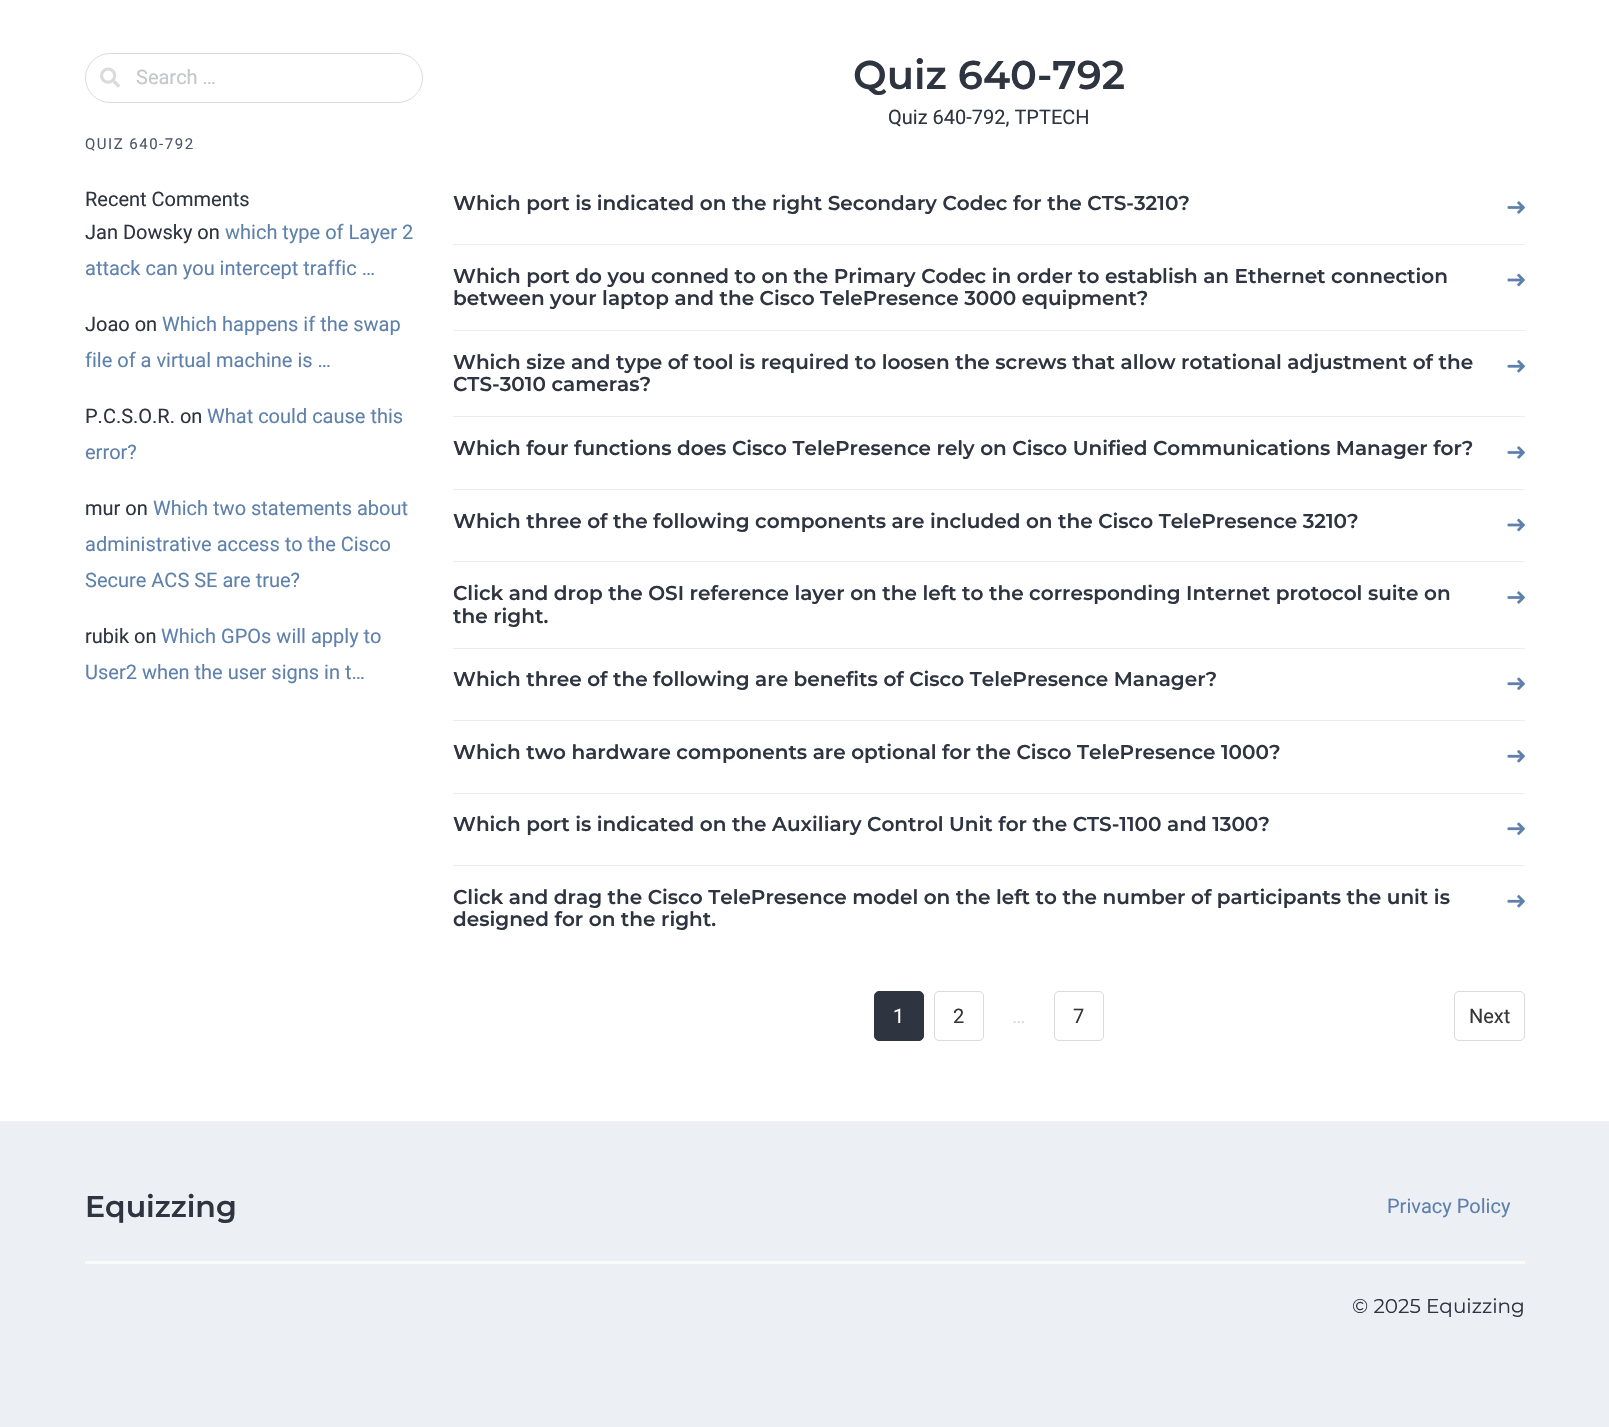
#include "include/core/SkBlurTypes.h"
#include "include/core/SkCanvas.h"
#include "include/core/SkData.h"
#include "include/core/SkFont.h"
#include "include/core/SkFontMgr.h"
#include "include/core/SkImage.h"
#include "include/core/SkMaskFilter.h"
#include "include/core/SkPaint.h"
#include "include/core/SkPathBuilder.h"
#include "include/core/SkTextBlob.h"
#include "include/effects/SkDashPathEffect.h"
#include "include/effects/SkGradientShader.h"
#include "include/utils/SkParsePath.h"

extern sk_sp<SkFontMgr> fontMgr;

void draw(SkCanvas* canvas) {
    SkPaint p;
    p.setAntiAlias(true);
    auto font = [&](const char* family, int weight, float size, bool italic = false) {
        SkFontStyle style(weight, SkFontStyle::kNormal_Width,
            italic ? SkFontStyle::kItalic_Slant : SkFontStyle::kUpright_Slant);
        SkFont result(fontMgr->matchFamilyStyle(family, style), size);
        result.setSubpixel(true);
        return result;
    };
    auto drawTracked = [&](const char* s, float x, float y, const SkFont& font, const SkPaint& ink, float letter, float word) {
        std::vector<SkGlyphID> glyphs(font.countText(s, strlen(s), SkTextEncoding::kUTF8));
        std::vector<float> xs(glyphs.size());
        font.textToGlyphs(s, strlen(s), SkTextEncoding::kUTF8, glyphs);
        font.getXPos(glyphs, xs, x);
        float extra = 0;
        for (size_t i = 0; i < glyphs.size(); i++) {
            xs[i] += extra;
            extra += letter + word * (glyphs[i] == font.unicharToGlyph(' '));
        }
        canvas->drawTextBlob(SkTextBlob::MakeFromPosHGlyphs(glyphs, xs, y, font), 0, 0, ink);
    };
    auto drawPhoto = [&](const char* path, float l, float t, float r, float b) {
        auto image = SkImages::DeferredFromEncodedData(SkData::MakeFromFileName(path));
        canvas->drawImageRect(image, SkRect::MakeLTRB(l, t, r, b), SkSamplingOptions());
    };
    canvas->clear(0xFFFFFFFF);
    p.setStyle(SkPaint::kStroke_Style);
    p.setStrokeWidth(1);
    p.setColor(0xFFDBDBDB);
    canvas->drawRoundRect(SkRect::MakeLTRB(85.5f, 53.5f, 422.5f, 102.5f), 24.5f, 24.5f, p);
    drawPhoto("media/1.png", 100, 67, 120, 88);
    auto font1 = font("Roboto", 400, 20);
    p.setStyle(SkPaint::kFill_Style);
    p.setColor(0xFFC4C6CB);
    canvas->drawString("Search …", 136, 84, font1, p);
    auto font2 = font("Roboto", 400, 15);
    p.setColor(0xFF4C566A);
    drawTracked("QUIZ 640-792", 85, 149, font2, p, 1.5f, 0);
    p.setColor(0xFF2E3440);
    canvas->drawString("Recent Comments", 85, 206, font1, p);
    canvas->drawString("Jan Dowsky on", 85, 239, font1, p);
    p.setColor(0xFF5E81AC);
    canvas->drawString("which type of Layer 2", 225, 239, font1, p);
    canvas->drawString("attack can you intercept traffic …", 85, 275, font1, p);
    p.setColor(0xFF2E3440);
    canvas->drawString("Joao on", 85, 331, font1, p);
    p.setColor(0xFF5E81AC);
    canvas->drawString("Which happens if the swap", 162, 331, font1, p);
    canvas->drawString("file of a virtual machine is …", 85, 367, font1, p);
    p.setColor(0xFF2E3440);
    canvas->drawString("P.C.S.O.R. on", 85, 423, font1, p);
    p.setColor(0xFF5E81AC);
    canvas->drawString("What could cause this", 207, 423, font1, p);
    canvas->drawString("error?", 85, 459, font1, p);
    p.setColor(0xFF2E3440);
    canvas->drawString("mur on", 85, 515, font1, p);
    p.setColor(0xFF5E81AC);
    {
        const struct { const char* s; float x, y; } items[] = {
            {"Which two statements about", 153, 515},
            {"administrative access to the Cisco", 85, 551},
            {"Secure ACS SE are true?", 85, 587},
        };
        for (auto [s, x, y] : items) {
            canvas->drawString(s, x, y, font1, p);
        }
    }
    p.setColor(0xFF2E3440);
    canvas->drawString("rubik on", 85, 643, font1, p);
    p.setColor(0xFF5E81AC);
    canvas->drawString("Which GPOs will apply to", 161, 643, font1, p);
    canvas->drawString("User2 when the user signs in t…", 85, 679, font1, p);
    auto font3 = font("Montserrat", 600, 40);
    p.setColor(0xFF2E3440);
    canvas->drawString("Quiz 640-792", 853, 89, font3, p);
    canvas->drawString("Quiz 640-792, TPTECH", 888, 124, font1, p);
    auto font4 = font("Montserrat", 600, 20);
    canvas->drawString("Which port is indicated on the right Secondary Codec for the CTS-3210?", 453, 210, font4, p);
    drawPhoto("media/2.png", 1507, 201, 1525, 214);
    p.setColor(0xFFEDEDED);
    canvas->drawRect(SkRect::MakeLTRB(453, 244, 1525, 245), p);
    p.setColor(0xFF2E3440);
    canvas->drawString("Which port do you conned to on the Primary Codec in order to establish an Ethernet connection", 453, 283, font4, p);
    canvas->drawString("between your laptop and the Cisco TelePresence 3000 equipment?", 453, 305, font4, p);
    drawPhoto("media/3.png", 1507, 273, 1525, 287);
    p.setColor(0xFFEDEDED);
    canvas->drawRect(SkRect::MakeLTRB(453, 330, 1525, 331), p);
    p.setColor(0xFF2E3440);
    canvas->drawString("Which size and type of tool is required to loosen the screws that allow rotational adjustment of the", 453, 369, font4, p);
    canvas->drawString("CTS-3010 cameras?", 453, 391, font4, p);
    drawPhoto("media/4.png", 1507, 360, 1525, 373);
    p.setColor(0xFFEDEDED);
    canvas->drawRect(SkRect::MakeLTRB(453, 416, 1525, 417), p);
    p.setColor(0xFF2E3440);
    canvas->drawString("Which four functions does Cisco TelePresence rely on Cisco Unified Communications Manager for?", 453, 455, font4, p);
    drawPhoto("media/2.png", 1507, 446, 1525, 459);
    p.setColor(0xFFEDEDED);
    canvas->drawRect(SkRect::MakeLTRB(453, 489, 1525, 490), p);
    p.setColor(0xFF2E3440);
    canvas->drawString("Which three of the following components are included on the Cisco TelePresence 3210?", 453, 528, font4, p);
    drawPhoto("media/3.png", 1507, 518, 1525, 532);
    p.setColor(0xFFEDEDED);
    canvas->drawRect(SkRect::MakeLTRB(453, 561, 1525, 562), p);
    p.setColor(0xFF2E3440);
    canvas->drawString("Click and drop the OSI reference layer on the left to the corresponding Internet protocol suite on", 453, 600, font4, p);
    canvas->drawString("the right.", 453, 623, font4, p);
    drawPhoto("media/2.png", 1507, 591, 1525, 604);
    p.setColor(0xFFEDEDED);
    canvas->drawRect(SkRect::MakeLTRB(453, 648, 1525, 649), p);
    p.setColor(0xFF2E3440);
    canvas->drawString("Which three of the following are benefits of Cisco TelePresence Manager?", 453, 686, font4, p);
    drawPhoto("media/5.png", 1507, 677, 1525, 690);
    p.setColor(0xFFEDEDED);
    canvas->drawRect(SkRect::MakeLTRB(453, 720, 1525, 721), p);
    p.setColor(0xFF2E3440);
    canvas->drawString("Which two hardware components are optional for the Cisco TelePresence 1000?", 453, 759, font4, p);
    drawPhoto("media/4.png", 1507, 750, 1525, 763);
    p.setColor(0xFFEDEDED);
    canvas->drawRect(SkRect::MakeLTRB(453, 793, 1525, 794), p);
    p.setColor(0xFF2E3440);
    canvas->drawString("Which port is indicated on the Auxiliary Control Unit for the CTS-1100 and 1300?", 453, 831, font4, p);
    drawPhoto("media/5.png", 1507, 822, 1525, 835);
    p.setColor(0xFFEDEDED);
    canvas->drawRect(SkRect::MakeLTRB(453, 865, 1525, 866), p);
    p.setColor(0xFF2E3440);
    canvas->drawString("Click and drag the Cisco TelePresence model on the left to the number of participants the unit is", 453, 904, font4, p);
    canvas->drawString("designed for on the right.", 453, 926, font4, p);
    drawPhoto("media/4.png", 1507, 895, 1525, 908);
    canvas->drawRoundRect(SkRect::MakeLTRB(874.5f, 991.5f, 923.5f, 1040.5f), 4.5f, 4.5f, p);
    p.setStyle(SkPaint::kStroke_Style);
    canvas->drawRoundRect(SkRect::MakeLTRB(874.5f, 991.5f, 923.5f, 1040.5f), 4.5f, 4.5f, p);
    p.setStyle(SkPaint::kFill_Style);
    p.setColor(0xFFFFFFFF);
    canvas->drawString("1", 893, 1023, font1, p);
    p.setStyle(SkPaint::kStroke_Style);
    p.setColor(0xFFDBDBDB);
    canvas->drawRoundRect(SkRect::MakeLTRB(934.5f, 991.5f, 983.5f, 1040.5f), 4.5f, 4.5f, p);
    p.setStyle(SkPaint::kFill_Style);
    p.setColor(0xFF363636);
    canvas->drawString("2", 953, 1023, font1, p);
    p.setColor(0xFFDBDBDB);
    canvas->drawString("…", 1012, 1023, font1, p);
    p.setStyle(SkPaint::kStroke_Style);
    canvas->drawRoundRect(SkRect::MakeLTRB(1054.5f, 991.5f, 1103.5f, 1040.5f), 4.5f, 4.5f, p);
    p.setStyle(SkPaint::kFill_Style);
    p.setColor(0xFF363636);
    canvas->drawString("7", 1073, 1023, font1, p);
    p.setStyle(SkPaint::kStroke_Style);
    p.setColor(0xFFDBDBDB);
    canvas->drawRoundRect(SkRect::MakeLTRB(1454.5f, 991.5f, 1524.5f, 1040.5f), 4.5f, 4.5f, p);
    p.setStyle(SkPaint::kFill_Style);
    p.setColor(0xFF363636);
    canvas->drawString("Next", 1469, 1023, font1, p);
    p.setColor(0xFFECEFF4);
    canvas->drawRect(SkRect::MakeLTRB(0, 1121, 1609, 1427), p);
    auto font5 = font("Montserrat", 600, 30);
    p.setColor(0xFF2E3440);
    canvas->drawString("Equizzing", 85, 1217, font5, p);
    p.setColor(0xFF5E81AC);
    canvas->drawString("Privacy Policy", 1387, 1213, font1, p);
    p.setColor(0xFFFAFAFA);
    canvas->drawRect(SkRect::MakeLTRB(85, 1261, 1525, 1264), p);
    auto font6 = font("Montserrat", 400, 20);
    p.setColor(0xFF2E3440);
    canvas->drawString("© 2025 Equizzing", 1352, 1313, font6, p);
}
